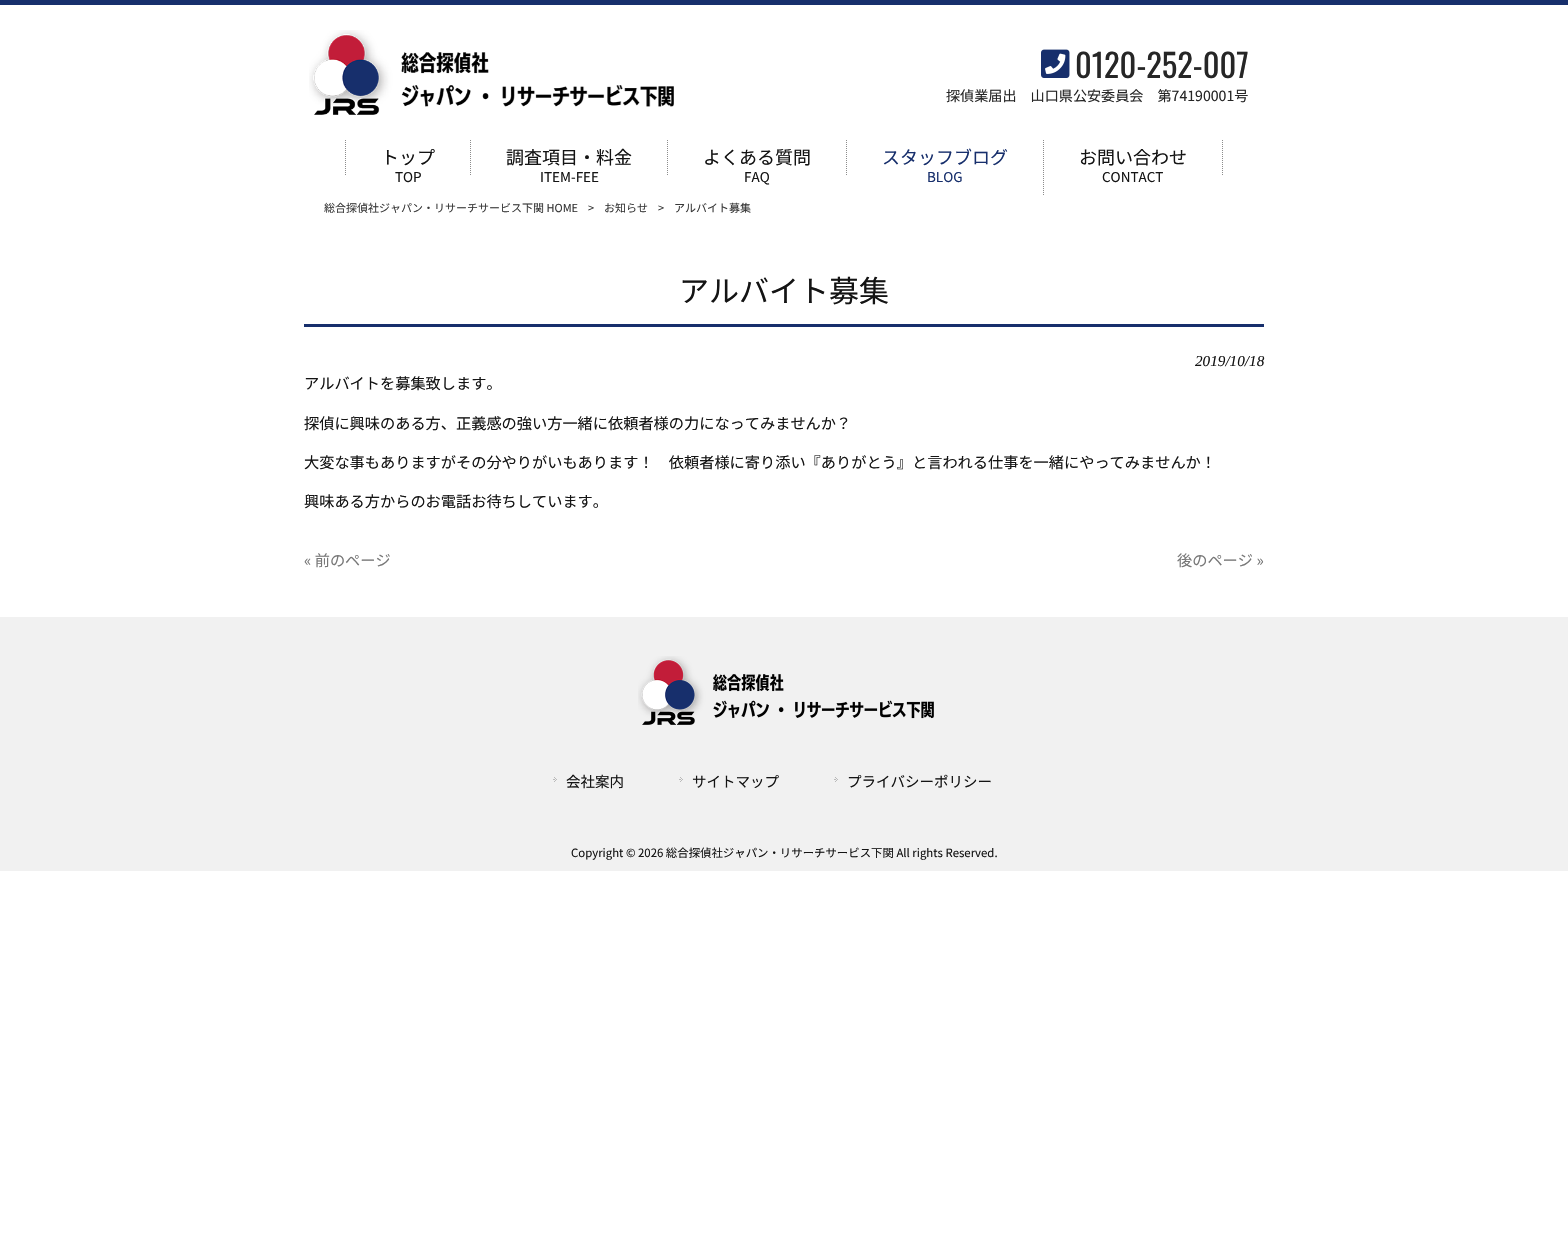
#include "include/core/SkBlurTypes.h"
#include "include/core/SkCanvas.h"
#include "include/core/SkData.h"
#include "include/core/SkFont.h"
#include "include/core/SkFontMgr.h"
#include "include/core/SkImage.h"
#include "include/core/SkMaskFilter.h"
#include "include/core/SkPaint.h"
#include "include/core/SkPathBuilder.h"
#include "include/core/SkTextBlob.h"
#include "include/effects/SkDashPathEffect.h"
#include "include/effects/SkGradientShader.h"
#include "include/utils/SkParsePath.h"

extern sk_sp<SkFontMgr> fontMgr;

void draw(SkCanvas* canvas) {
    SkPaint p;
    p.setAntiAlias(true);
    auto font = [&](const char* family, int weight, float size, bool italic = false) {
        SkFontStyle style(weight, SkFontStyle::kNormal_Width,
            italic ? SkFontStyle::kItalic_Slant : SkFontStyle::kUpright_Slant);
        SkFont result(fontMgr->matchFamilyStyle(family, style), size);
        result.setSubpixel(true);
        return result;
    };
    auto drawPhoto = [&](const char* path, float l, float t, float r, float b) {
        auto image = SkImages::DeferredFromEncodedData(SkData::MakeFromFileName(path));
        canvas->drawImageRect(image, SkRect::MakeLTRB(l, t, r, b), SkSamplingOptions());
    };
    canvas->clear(0xFFFFFFFF);
    p.setColor(0xFF172F6C);
    canvas->drawRect(SkRect::MakeLTRB(0, 0, 1568, 5), p);
    drawPhoto("media/1.png", 309, 30, 674, 115);
    drawPhoto("media/2.png", 1041, 49, 1070, 78);
    auto font1 = font("Oswald", 400, 32.5f);
    p.setColor(0xFF262626);
    canvas->drawString("0120-252-007", 1075, 78, font1, p);
    auto font2 = font("Noto Sans JP", 100, 14.1f);
    canvas->drawString("探偵業届出　山口県公安委員会　第74190001号", 946, 101, font2, p);
    p.setStyle(SkPaint::kStroke_Style);
    p.setStrokeWidth(1);
    p.setColor(0xFF8C8C8C);
    p.setPathEffect(SkDashPathEffect::Make({{1, 1}}, 0));
    canvas->drawPath(SkPathBuilder().moveTo(470.5f, 140).lineTo(470.5f, 176).detach(), p);
    p.setPathEffect(nullptr);
    p.setPathEffect(SkDashPathEffect::Make({{1, 1}}, 0));
    canvas->drawPath(SkPathBuilder().moveTo(345.5f, 140).lineTo(345.5f, 176).detach(), p);
    p.setPathEffect(nullptr);
    auto font3 = font("Noto Sans JP", 100, 18);
    p.setStyle(SkPaint::kFill_Style);
    p.setColor(0xFF141414);
    canvas->drawString("トップ", 381, 164, font3, p);
    auto font4 = font("Noto Sans JP", 100, 13.5f);
    canvas->drawString("TOP", 395, 182, font4, p);
    p.setStyle(SkPaint::kStroke_Style);
    p.setColor(0xFF8C8C8C);
    p.setPathEffect(SkDashPathEffect::Make({{1, 1}}, 0));
    canvas->drawPath(SkPathBuilder().moveTo(667.5f, 140).lineTo(667.5f, 176).detach(), p);
    p.setPathEffect(nullptr);
    p.setStyle(SkPaint::kFill_Style);
    p.setColor(0xFF141414);
    canvas->drawString("調査項目・料金", 506, 164, font3, p);
    canvas->drawString("ITEM-FEE", 540, 182, font4, p);
    p.setStyle(SkPaint::kStroke_Style);
    p.setColor(0xFF8C8C8C);
    p.setPathEffect(SkDashPathEffect::Make({{1, 1}}, 0));
    canvas->drawPath(SkPathBuilder().moveTo(846.5f, 140).lineTo(846.5f, 176).detach(), p);
    p.setPathEffect(nullptr);
    p.setStyle(SkPaint::kFill_Style);
    p.setColor(0xFF141414);
    canvas->drawString("よくある質問", 703, 164, font3, p);
    canvas->drawString("FAQ", 744, 182, font4, p);
    p.setStyle(SkPaint::kStroke_Style);
    p.setColor(0xFF8C8C8C);
    p.setPathEffect(SkDashPathEffect::Make({{1, 1}}, 0));
    canvas->drawPath(SkPathBuilder().moveTo(1043.5f, 140).lineTo(1043.5f, 196).detach(), p);
    p.setPathEffect(nullptr);
    p.setStyle(SkPaint::kFill_Style);
    p.setColor(0xFF172F6C);
    canvas->drawString("スタッフブログ", 882, 164, font3, p);
    canvas->drawString("BLOG", 927, 182, font4, p);
    p.setStyle(SkPaint::kStroke_Style);
    p.setColor(0xFF8C8C8C);
    p.setPathEffect(SkDashPathEffect::Make({{1, 1}}, 0));
    canvas->drawPath(SkPathBuilder().moveTo(1222.5f, 140).lineTo(1222.5f, 176).detach(), p);
    p.setPathEffect(nullptr);
    p.setStyle(SkPaint::kFill_Style);
    p.setColor(0xFF141414);
    canvas->drawString("お問い合わせ", 1079, 164, font3, p);
    canvas->drawString("CONTACT", 1102, 182, font4, p);
    auto font5 = font("Noto Sans JP", 100, 11);
    p.setColor(0xFF383838);
    {
        const struct { const char* s; float x, y; } items[] = {
            {"総合探偵社ジャパン・リサーチサービス下関 HOME", 324, 212},
            {">", 588, 212},
            {"お知らせ", 604, 212},
            {">", 658, 212},
            {"アルバイト募集", 674, 212},
        };
        for (auto [s, x, y] : items) {
            canvas->drawString(s, x, y, font5, p);
        }
    }
    auto font6 = font("Noto Sans JP", 100, 30);
    p.setColor(0xFF141414);
    canvas->drawString("アルバイト募集", 679, 302, font6, p);
    p.setColor(0xFF172F6C);
    canvas->drawRect(SkRect::MakeLTRB(304, 324, 1264, 327), p);
    auto font7 = font("Liberation Serif", 400, 15.2f, true);
    p.setColor(0xFF141414);
    canvas->drawString("2019/10/18", 1195, 366, font7, p);
    auto font8 = font("Noto Sans JP", 100, 15.2f);
    {
        const struct { const char* s; float x, y; } items[] = {
            {"アルバイトを募集致します。", 304, 389},
            {"探偵に興味のある方、正義感の強い方一緒に依頼者様の力になってみませんか？", 304, 429},
            {"大変な事もありますがその分やりがいもあります！　依頼者様に寄り添い『ありがとう』と言われる仕事を一緒にやってみませんか！", 304, 468},
            {"興味ある方からのお電話お待ちしています。", 304, 507},
        };
        for (auto [s, x, y] : items) {
            canvas->drawString(s, x, y, font8, p);
        }
    }
    p.setColor(0xFF777777);
    canvas->drawString("« 前のページ", 304, 566, font8, p);
    canvas->drawString("後のページ »", 1177, 566, font8, p);
    p.setColor(0xFFF1F1F1);
    canvas->drawRect(SkRect::MakeLTRB(0, 617, 1568, 871), p);
    drawPhoto("media/3.png", 638, 656, 934, 725);
    drawPhoto("media/4.png", 553, 777, 557, 782);
    auto font9 = font("Noto Sans JP", 100, 14.5f);
    p.setColor(0xFF141414);
    canvas->drawString("会社案内", 566, 787, font9, p);
    drawPhoto("media/4.png", 679, 777, 683, 782);
    canvas->drawString("サイトマップ", 692, 787, font9, p);
    drawPhoto("media/4.png", 834, 777, 838, 782);
    canvas->drawString("プライバシーポリシー", 847, 787, font9, p);
    auto font10 = font("Noto Sans JP", 100, 11.4f);
    canvas->drawString("Copyright © 2026 総合探偵社ジャパン・リサーチサービス下関 All rights Reserved.", 571, 857, font10, p);
}
